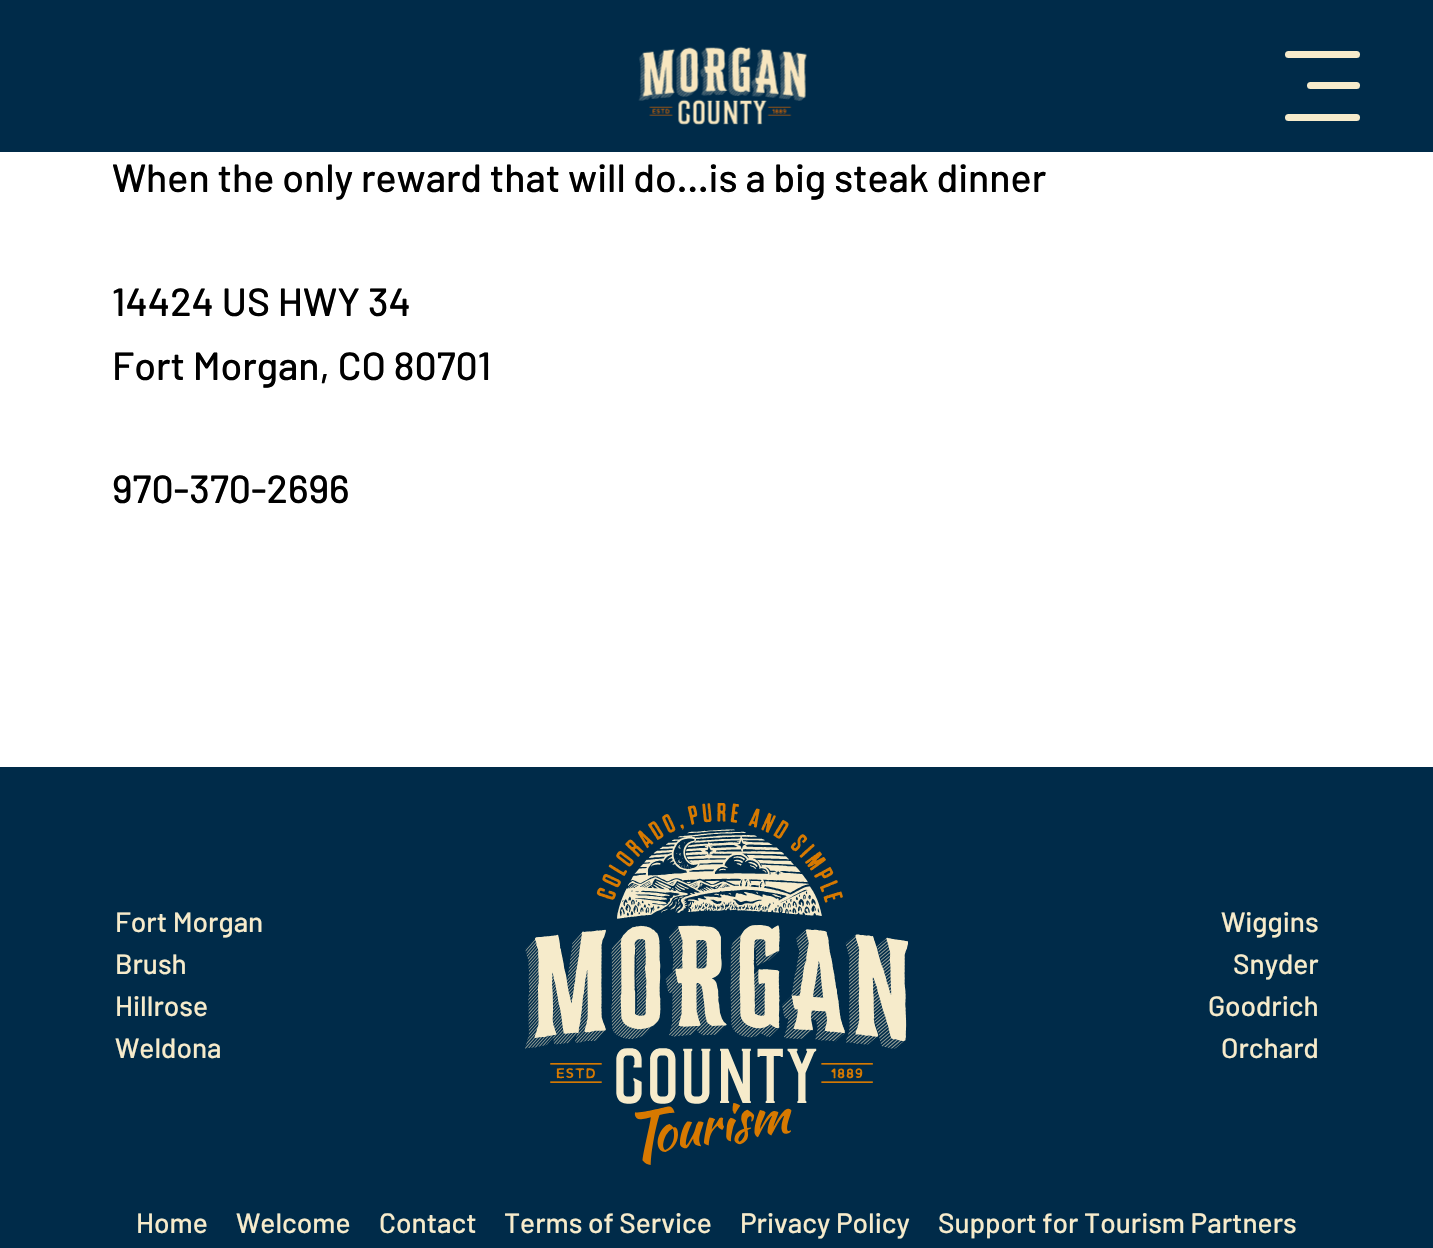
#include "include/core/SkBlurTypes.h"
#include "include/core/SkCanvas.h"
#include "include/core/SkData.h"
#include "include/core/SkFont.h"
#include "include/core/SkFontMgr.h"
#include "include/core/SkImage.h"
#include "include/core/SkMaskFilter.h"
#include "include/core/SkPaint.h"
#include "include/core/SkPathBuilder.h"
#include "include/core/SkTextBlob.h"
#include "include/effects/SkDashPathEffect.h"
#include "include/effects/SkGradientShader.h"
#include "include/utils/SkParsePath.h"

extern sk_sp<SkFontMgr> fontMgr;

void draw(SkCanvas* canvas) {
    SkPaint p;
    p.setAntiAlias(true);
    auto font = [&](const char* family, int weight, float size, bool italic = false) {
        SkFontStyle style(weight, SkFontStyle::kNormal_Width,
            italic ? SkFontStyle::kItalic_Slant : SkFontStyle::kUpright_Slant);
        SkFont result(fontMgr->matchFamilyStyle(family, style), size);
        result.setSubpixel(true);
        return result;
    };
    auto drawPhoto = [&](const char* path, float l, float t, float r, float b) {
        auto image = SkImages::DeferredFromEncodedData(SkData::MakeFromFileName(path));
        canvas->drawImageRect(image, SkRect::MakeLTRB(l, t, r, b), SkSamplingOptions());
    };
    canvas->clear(0xFFFFFFFF);
    p.setColor(0xFF002B49);
    canvas->drawRect(SkRect::MakeLTRB(0, 0, 1433, 152), p);
    drawPhoto("media/1.png", 638, 46, 807, 125);
    p.setColor(0xFFF6EBCB);
    canvas->drawRoundRect(SkRect::MakeLTRB(1285, 51, 1360, 58), 3.5f, 3.5f, p);
    canvas->drawRoundRect(SkRect::MakeLTRB(1307, 82, 1360, 89), 3.5f, 3.5f, p);
    canvas->drawRoundRect(SkRect::MakeLTRB(1285, 114, 1360, 121), 3.5f, 3.5f, p);
    auto font1 = font("Barlow", 500, 39.2f);
    p.setColor(0xFF000000);
    {
        const struct { const char* s; float x, y; } items[] = {
            {"When the only reward that will do…is a big steak dinner", 112, 192},
            {"14424 US HWY 34", 112, 316},
            {"Fort Morgan, CO 80701", 112, 380},
            {"970-370-2696", 112, 503},
        };
        for (auto [s, x, y] : items) {
            canvas->drawString(s, x, y, font1, p);
        }
    }
    p.setColor(0xFF002B49);
    canvas->drawRect(SkRect::MakeLTRB(0, 767, 1433, 1248), p);
    auto font2 = font("Barlow", 500, 28);
    p.setColor(0xFFF6EBCB);
    {
        const struct { const char* s; float x, y; } items[] = {
            {"Fort Morgan", 115, 932},
            {"Brush", 115, 974},
            {"Hillrose", 115, 1016},
            {"Weldona", 115, 1058},
        };
        for (auto [s, x, y] : items) {
            canvas->drawString(s, x, y, font2, p);
        }
    }
    drawPhoto("media/2.png", 525, 803, 908, 1165);
    {
        const struct { const char* s; float x, y; } items[] = {
            {"Wiggins", 1221, 932},
            {"Snyder", 1233, 974},
            {"Goodrich", 1208, 1016},
            {"Orchard", 1221, 1058},
            {"Home", 136, 1233},
            {"Welcome", 236, 1233},
            {"Contact", 379, 1233},
            {"Terms of Service", 504, 1233},
            {"Privacy Policy", 740, 1233},
            {"Support for Tourism Partners", 938, 1233},
        };
        for (auto [s, x, y] : items) {
            canvas->drawString(s, x, y, font2, p);
        }
    }
}
